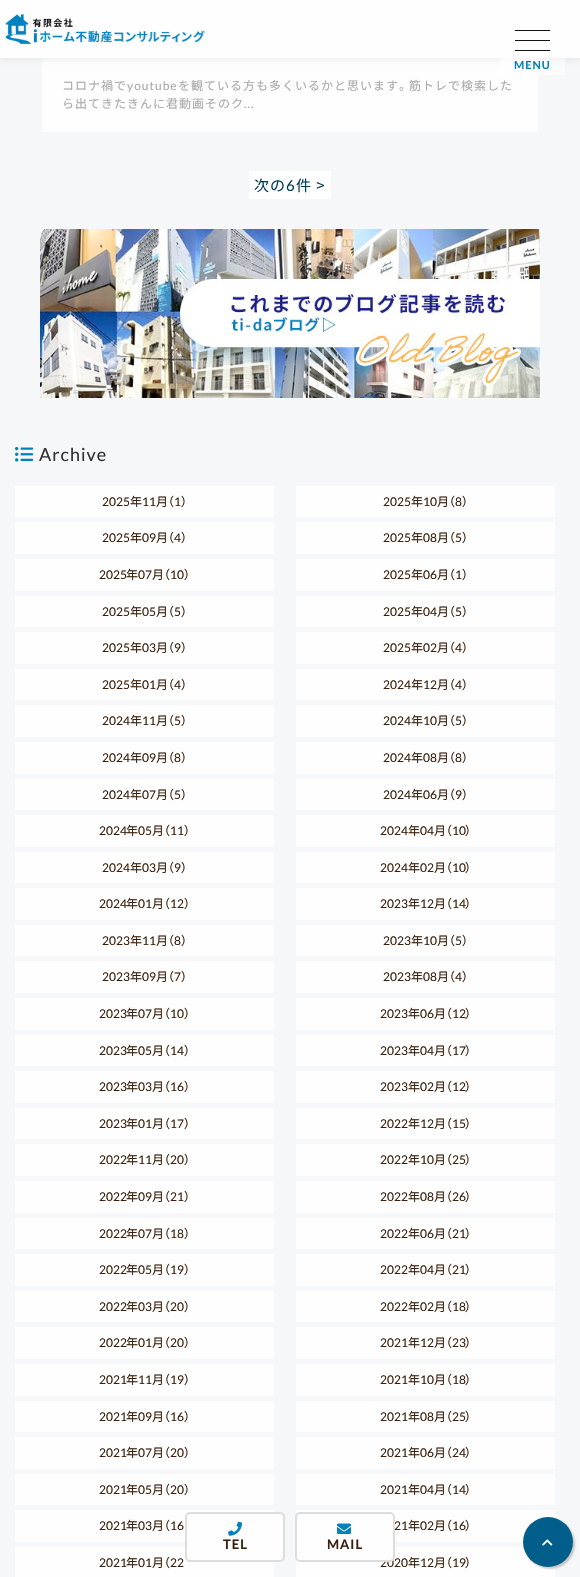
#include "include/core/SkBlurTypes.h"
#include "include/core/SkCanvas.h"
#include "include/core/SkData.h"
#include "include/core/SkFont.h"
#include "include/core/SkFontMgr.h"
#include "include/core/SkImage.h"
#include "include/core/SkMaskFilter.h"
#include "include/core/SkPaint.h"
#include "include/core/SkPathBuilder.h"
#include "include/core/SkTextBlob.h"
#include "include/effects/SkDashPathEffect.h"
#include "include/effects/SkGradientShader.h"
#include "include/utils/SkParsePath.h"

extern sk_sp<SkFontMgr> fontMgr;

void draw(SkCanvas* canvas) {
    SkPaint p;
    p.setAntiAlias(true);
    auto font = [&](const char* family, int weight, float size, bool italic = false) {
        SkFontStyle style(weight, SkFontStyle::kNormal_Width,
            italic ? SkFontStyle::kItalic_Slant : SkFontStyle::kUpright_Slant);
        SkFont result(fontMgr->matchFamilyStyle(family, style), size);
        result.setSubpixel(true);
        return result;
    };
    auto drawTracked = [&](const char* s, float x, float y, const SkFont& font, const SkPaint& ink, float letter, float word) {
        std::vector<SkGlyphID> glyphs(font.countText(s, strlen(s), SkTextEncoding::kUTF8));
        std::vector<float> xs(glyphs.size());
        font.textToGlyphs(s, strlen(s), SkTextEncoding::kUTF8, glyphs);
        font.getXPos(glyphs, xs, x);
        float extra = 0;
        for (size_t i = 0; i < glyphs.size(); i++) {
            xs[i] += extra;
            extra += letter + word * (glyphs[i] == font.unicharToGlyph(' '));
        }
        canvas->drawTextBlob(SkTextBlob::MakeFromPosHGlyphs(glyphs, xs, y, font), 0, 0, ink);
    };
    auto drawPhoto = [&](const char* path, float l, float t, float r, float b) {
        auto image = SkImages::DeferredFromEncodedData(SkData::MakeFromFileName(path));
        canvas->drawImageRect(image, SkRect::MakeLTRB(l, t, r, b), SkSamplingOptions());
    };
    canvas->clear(0xFFF6F7F8);
    p.setColor(0xFFFEFEFE);
    canvas->drawRect(SkRect::MakeLTRB(42, 58, 538, 132), p);
    p.setColor(0x1A000000);
    p.setMaskFilter(SkMaskFilter::MakeBlur(kNormal_SkBlurStyle, 4));
    canvas->drawRect(SkRect::MakeLTRB(0, 0, 580, 58), p);
    p.setMaskFilter(nullptr);
    p.setColor(0xFFFEFEFE);
    canvas->drawRect(SkRect::MakeLTRB(0, 0, 580, 58), p);
    drawPhoto("media/1.png", 5, 14, 205, 45);
    {
        const struct { float l, t, r, b; SkColor color; } items[] = {
            {500, 58, 565, 75, 0x80FFFFFF},
            {515, 30, 550, 31, 0xFF111111},
            {515, 40, 550, 41, 0xFF111111},
            {515, 50, 550, 51, 0xFF111111},
        };
        for (auto [l, t, r, b, color] : items) {
            p.setColor(color);
            canvas->drawRect(SkRect::MakeLTRB(l, t, r, b), p);
        }
    }
    auto font1 = font("Lato", 700, 11);
    p.setColor(0xFF0281BC);
    drawTracked("MENU", 514, 69, font1, p, 1, 0);
    auto font2 = font("Noto Sans JP", 400, 12);
    p.setColor(0xFFAAAAAA);
    drawTracked("コロナ禍で", 62, 90, font2, p, 1, 0);
    auto font3 = font("Lato", 400, 12);
    drawTracked("youtube", 127, 90, font3, p, 1, 0);
    drawTracked("を観ている方も多くいるかと思います", 178, 90, font2, p, 1, 0);
    auto font4 = font("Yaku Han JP", 400, 12);
    drawTracked("。", 399, 90, font4, p, 1, 0);
    drawTracked("筋トレで検索した", 409, 90, font2, p, 1, 0);
    drawTracked("ら出てきたきんに君動画そのク", 62, 108, font2, p, 1, 0);
    drawTracked("...", 244, 108, font3, p, 1, 0);
    p.setColor(0xFFFFFFFF);
    canvas->drawRect(SkRect::MakeLTRB(249, 171, 331, 199), p);
    auto font5 = font("Noto Sans JP", 400, 15);
    p.setColor(0xFF013C57);
    drawTracked("次の", 254, 191, font5, p, 1, 0);
    auto font6 = font("Lato", 400, 15);
    drawTracked("6", 286, 191, font6, p, 1, 0);
    drawTracked("件 >", 296, 191, font5, p, 1, 0);
    drawPhoto("media/2.png", 40, 229, 540, 398);
    drawPhoto("media/3.png", 15, 447, 33, 462);
    auto font7 = font("Lato", 400, 18);
    p.setColor(0xFF323232);
    drawTracked("Archive", 39, 461, font7, p, 1, 0);
    p.setColor(0xFFFEFEFE);
    canvas->drawRect(SkRect::MakeLTRB(15, 486, 274, 517), p);
    p.setColor(0xFF3A200C);
    canvas->drawString("2025", 102, 506, font3, p);
    canvas->drawString("年", 130, 506, font2, p);
    canvas->drawString("11", 142, 506, font3, p);
    canvas->drawString("月", 156, 506, font2, p);
    canvas->drawString("（", 168, 506, font4, p);
    canvas->drawString("1", 174, 506, font3, p);
    canvas->drawString("）", 181, 506, font4, p);
    p.setColor(0xFFFEFEFE);
    canvas->drawRect(SkRect::MakeLTRB(296, 486, 555, 517), p);
    p.setColor(0xFF3A200C);
    canvas->drawString("2025", 383, 506, font3, p);
    canvas->drawString("年", 411, 506, font2, p);
    canvas->drawString("10", 423, 506, font3, p);
    canvas->drawString("月", 437, 506, font2, p);
    canvas->drawString("（", 449, 506, font4, p);
    canvas->drawString("8", 455, 506, font3, p);
    canvas->drawString("）", 462, 506, font4, p);
    p.setColor(0xFFFEFEFE);
    canvas->drawRect(SkRect::MakeLTRB(15, 522, 274, 554), p);
    p.setColor(0xFF3A200C);
    canvas->drawString("2025", 102, 542, font3, p);
    canvas->drawString("年", 130, 542, font2, p);
    canvas->drawString("09", 142, 542, font3, p);
    canvas->drawString("月", 156, 542, font2, p);
    canvas->drawString("（", 168, 542, font4, p);
    canvas->drawString("4", 174, 542, font3, p);
    canvas->drawString("）", 181, 542, font4, p);
    p.setColor(0xFFFEFEFE);
    canvas->drawRect(SkRect::MakeLTRB(296, 522, 555, 554), p);
    p.setColor(0xFF3A200C);
    canvas->drawString("2025", 383, 542, font3, p);
    canvas->drawString("年", 411, 542, font2, p);
    canvas->drawString("08", 423, 542, font3, p);
    canvas->drawString("月", 437, 542, font2, p);
    canvas->drawString("（", 449, 542, font4, p);
    canvas->drawString("5", 455, 542, font3, p);
    canvas->drawString("）", 462, 542, font4, p);
    p.setColor(0xFFFEFEFE);
    canvas->drawRect(SkRect::MakeLTRB(15, 559, 274, 591), p);
    p.setColor(0xFF3A200C);
    canvas->drawString("2025", 99, 579, font3, p);
    canvas->drawString("年", 126, 579, font2, p);
    canvas->drawString("07", 138, 579, font3, p);
    canvas->drawString("月", 152, 579, font2, p);
    canvas->drawString("（", 164, 579, font4, p);
    canvas->drawString("10", 170, 579, font3, p);
    canvas->drawString("）", 184, 579, font4, p);
    p.setColor(0xFFFEFEFE);
    canvas->drawRect(SkRect::MakeLTRB(296, 559, 555, 591), p);
    p.setColor(0xFF3A200C);
    canvas->drawString("2025", 383, 579, font3, p);
    canvas->drawString("年", 411, 579, font2, p);
    canvas->drawString("06", 423, 579, font3, p);
    canvas->drawString("月", 437, 579, font2, p);
    canvas->drawString("（", 449, 579, font4, p);
    canvas->drawString("1", 455, 579, font3, p);
    canvas->drawString("）", 462, 579, font4, p);
    p.setColor(0xFFFEFEFE);
    canvas->drawRect(SkRect::MakeLTRB(15, 596, 274, 627), p);
    p.setColor(0xFF3A200C);
    canvas->drawString("2025", 102, 616, font3, p);
    canvas->drawString("年", 130, 616, font2, p);
    canvas->drawString("05", 142, 616, font3, p);
    canvas->drawString("月", 156, 616, font2, p);
    canvas->drawString("（", 168, 616, font4, p);
    canvas->drawString("5", 174, 616, font3, p);
    canvas->drawString("）", 181, 616, font4, p);
    p.setColor(0xFFFEFEFE);
    canvas->drawRect(SkRect::MakeLTRB(296, 596, 555, 627), p);
    p.setColor(0xFF3A200C);
    canvas->drawString("2025", 383, 616, font3, p);
    canvas->drawString("年", 411, 616, font2, p);
    canvas->drawString("04", 423, 616, font3, p);
    canvas->drawString("月", 437, 616, font2, p);
    canvas->drawString("（", 449, 616, font4, p);
    canvas->drawString("5", 455, 616, font3, p);
    canvas->drawString("）", 462, 616, font4, p);
    p.setColor(0xFFFEFEFE);
    canvas->drawRect(SkRect::MakeLTRB(15, 632, 274, 664), p);
    p.setColor(0xFF3A200C);
    canvas->drawString("2025", 102, 652, font3, p);
    canvas->drawString("年", 130, 652, font2, p);
    canvas->drawString("03", 142, 652, font3, p);
    canvas->drawString("月", 156, 652, font2, p);
    canvas->drawString("（", 168, 652, font4, p);
    canvas->drawString("9", 174, 652, font3, p);
    canvas->drawString("）", 181, 652, font4, p);
    p.setColor(0xFFFEFEFE);
    canvas->drawRect(SkRect::MakeLTRB(296, 632, 555, 664), p);
    p.setColor(0xFF3A200C);
    canvas->drawString("2025", 383, 652, font3, p);
    canvas->drawString("年", 411, 652, font2, p);
    canvas->drawString("02", 423, 652, font3, p);
    canvas->drawString("月", 437, 652, font2, p);
    canvas->drawString("（", 449, 652, font4, p);
    canvas->drawString("4", 455, 652, font3, p);
    canvas->drawString("）", 462, 652, font4, p);
    p.setColor(0xFFFEFEFE);
    canvas->drawRect(SkRect::MakeLTRB(15, 669, 274, 700), p);
    p.setColor(0xFF3A200C);
    canvas->drawString("2025", 102, 689, font3, p);
    canvas->drawString("年", 130, 689, font2, p);
    canvas->drawString("01", 142, 689, font3, p);
    canvas->drawString("月", 156, 689, font2, p);
    canvas->drawString("（", 168, 689, font4, p);
    canvas->drawString("4", 174, 689, font3, p);
    canvas->drawString("）", 181, 689, font4, p);
    p.setColor(0xFFFEFEFE);
    canvas->drawRect(SkRect::MakeLTRB(296, 669, 555, 700), p);
    p.setColor(0xFF3A200C);
    canvas->drawString("2024", 383, 689, font3, p);
    canvas->drawString("年", 411, 689, font2, p);
    canvas->drawString("12", 423, 689, font3, p);
    canvas->drawString("月", 437, 689, font2, p);
    canvas->drawString("（", 449, 689, font4, p);
    canvas->drawString("4", 455, 689, font3, p);
    canvas->drawString("）", 462, 689, font4, p);
    p.setColor(0xFFFEFEFE);
    canvas->drawRect(SkRect::MakeLTRB(15, 705, 274, 737), p);
    p.setColor(0xFF3A200C);
    canvas->drawString("2024", 102, 725, font3, p);
    canvas->drawString("年", 130, 725, font2, p);
    canvas->drawString("11", 142, 725, font3, p);
    canvas->drawString("月", 156, 725, font2, p);
    canvas->drawString("（", 168, 725, font4, p);
    canvas->drawString("5", 174, 725, font3, p);
    canvas->drawString("）", 181, 725, font4, p);
    p.setColor(0xFFFEFEFE);
    canvas->drawRect(SkRect::MakeLTRB(296, 705, 555, 737), p);
    p.setColor(0xFF3A200C);
    canvas->drawString("2024", 383, 725, font3, p);
    canvas->drawString("年", 411, 725, font2, p);
    canvas->drawString("10", 423, 725, font3, p);
    canvas->drawString("月", 437, 725, font2, p);
    canvas->drawString("（", 449, 725, font4, p);
    canvas->drawString("5", 455, 725, font3, p);
    canvas->drawString("）", 462, 725, font4, p);
    p.setColor(0xFFFEFEFE);
    canvas->drawRect(SkRect::MakeLTRB(15, 742, 274, 774), p);
    p.setColor(0xFF3A200C);
    canvas->drawString("2024", 102, 762, font3, p);
    canvas->drawString("年", 130, 762, font2, p);
    canvas->drawString("09", 142, 762, font3, p);
    canvas->drawString("月", 156, 762, font2, p);
    canvas->drawString("（", 168, 762, font4, p);
    canvas->drawString("8", 174, 762, font3, p);
    canvas->drawString("）", 181, 762, font4, p);
    p.setColor(0xFFFEFEFE);
    canvas->drawRect(SkRect::MakeLTRB(296, 742, 555, 774), p);
    p.setColor(0xFF3A200C);
    canvas->drawString("2024", 383, 762, font3, p);
    canvas->drawString("年", 411, 762, font2, p);
    canvas->drawString("08", 423, 762, font3, p);
    canvas->drawString("月", 437, 762, font2, p);
    canvas->drawString("（", 449, 762, font4, p);
    canvas->drawString("8", 455, 762, font3, p);
    canvas->drawString("）", 462, 762, font4, p);
    p.setColor(0xFFFEFEFE);
    canvas->drawRect(SkRect::MakeLTRB(15, 779, 274, 810), p);
    p.setColor(0xFF3A200C);
    canvas->drawString("2024", 102, 799, font3, p);
    canvas->drawString("年", 130, 799, font2, p);
    canvas->drawString("07", 142, 799, font3, p);
    canvas->drawString("月", 156, 799, font2, p);
    canvas->drawString("（", 168, 799, font4, p);
    canvas->drawString("5", 174, 799, font3, p);
    canvas->drawString("）", 181, 799, font4, p);
    p.setColor(0xFFFEFEFE);
    canvas->drawRect(SkRect::MakeLTRB(296, 779, 555, 810), p);
    p.setColor(0xFF3A200C);
    canvas->drawString("2024", 383, 799, font3, p);
    canvas->drawString("年", 411, 799, font2, p);
    canvas->drawString("06", 423, 799, font3, p);
    canvas->drawString("月", 437, 799, font2, p);
    canvas->drawString("（", 449, 799, font4, p);
    canvas->drawString("9", 455, 799, font3, p);
    canvas->drawString("）", 462, 799, font4, p);
    p.setColor(0xFFFEFEFE);
    canvas->drawRect(SkRect::MakeLTRB(15, 815, 274, 847), p);
    p.setColor(0xFF3A200C);
    canvas->drawString("2024", 99, 835, font3, p);
    canvas->drawString("年", 126, 835, font2, p);
    canvas->drawString("05", 138, 835, font3, p);
    canvas->drawString("月", 152, 835, font2, p);
    canvas->drawString("（", 164, 835, font4, p);
    canvas->drawString("11", 170, 835, font3, p);
    canvas->drawString("）", 184, 835, font4, p);
    p.setColor(0xFFFEFEFE);
    canvas->drawRect(SkRect::MakeLTRB(296, 815, 555, 847), p);
    p.setColor(0xFF3A200C);
    canvas->drawString("2024", 380, 835, font3, p);
    canvas->drawString("年", 408, 835, font2, p);
    canvas->drawString("04", 420, 835, font3, p);
    canvas->drawString("月", 434, 835, font2, p);
    canvas->drawString("（", 446, 835, font4, p);
    canvas->drawString("10", 452, 835, font3, p);
    canvas->drawString("）", 465, 835, font4, p);
    p.setColor(0xFFFEFEFE);
    canvas->drawRect(SkRect::MakeLTRB(15, 852, 274, 883), p);
    p.setColor(0xFF3A200C);
    canvas->drawString("2024", 102, 872, font3, p);
    canvas->drawString("年", 130, 872, font2, p);
    canvas->drawString("03", 142, 872, font3, p);
    canvas->drawString("月", 156, 872, font2, p);
    canvas->drawString("（", 168, 872, font4, p);
    canvas->drawString("9", 174, 872, font3, p);
    canvas->drawString("）", 181, 872, font4, p);
    p.setColor(0xFFFEFEFE);
    canvas->drawRect(SkRect::MakeLTRB(296, 852, 555, 883), p);
    p.setColor(0xFF3A200C);
    canvas->drawString("2024", 380, 872, font3, p);
    canvas->drawString("年", 408, 872, font2, p);
    canvas->drawString("02", 420, 872, font3, p);
    canvas->drawString("月", 434, 872, font2, p);
    canvas->drawString("（", 446, 872, font4, p);
    canvas->drawString("10", 452, 872, font3, p);
    canvas->drawString("）", 465, 872, font4, p);
    p.setColor(0xFFFEFEFE);
    canvas->drawRect(SkRect::MakeLTRB(15, 888, 274, 920), p);
    p.setColor(0xFF3A200C);
    canvas->drawString("2024", 99, 908, font3, p);
    canvas->drawString("年", 126, 908, font2, p);
    canvas->drawString("01", 138, 908, font3, p);
    canvas->drawString("月", 152, 908, font2, p);
    canvas->drawString("（", 164, 908, font4, p);
    canvas->drawString("12", 170, 908, font3, p);
    canvas->drawString("）", 184, 908, font4, p);
    p.setColor(0xFFFEFEFE);
    canvas->drawRect(SkRect::MakeLTRB(296, 888, 555, 920), p);
    p.setColor(0xFF3A200C);
    canvas->drawString("2023", 380, 908, font3, p);
    canvas->drawString("年", 408, 908, font2, p);
    canvas->drawString("12", 420, 908, font3, p);
    canvas->drawString("月", 434, 908, font2, p);
    canvas->drawString("（", 446, 908, font4, p);
    canvas->drawString("14", 452, 908, font3, p);
    canvas->drawString("）", 465, 908, font4, p);
    p.setColor(0xFFFEFEFE);
    canvas->drawRect(SkRect::MakeLTRB(15, 925, 274, 956), p);
    p.setColor(0xFF3A200C);
    canvas->drawString("2023", 102, 945, font3, p);
    canvas->drawString("年", 130, 945, font2, p);
    canvas->drawString("11", 142, 945, font3, p);
    canvas->drawString("月", 156, 945, font2, p);
    canvas->drawString("（", 168, 945, font4, p);
    canvas->drawString("8", 174, 945, font3, p);
    canvas->drawString("）", 181, 945, font4, p);
    p.setColor(0xFFFEFEFE);
    canvas->drawRect(SkRect::MakeLTRB(296, 925, 555, 956), p);
    p.setColor(0xFF3A200C);
    canvas->drawString("2023", 383, 945, font3, p);
    canvas->drawString("年", 411, 945, font2, p);
    canvas->drawString("10", 423, 945, font3, p);
    canvas->drawString("月", 437, 945, font2, p);
    canvas->drawString("（", 449, 945, font4, p);
    canvas->drawString("5", 455, 945, font3, p);
    canvas->drawString("）", 462, 945, font4, p);
    p.setColor(0xFFFEFEFE);
    canvas->drawRect(SkRect::MakeLTRB(15, 961, 274, 993), p);
    p.setColor(0xFF3A200C);
    canvas->drawString("2023", 102, 981, font3, p);
    canvas->drawString("年", 130, 981, font2, p);
    canvas->drawString("09", 142, 981, font3, p);
    canvas->drawString("月", 156, 981, font2, p);
    canvas->drawString("（", 168, 981, font4, p);
    canvas->drawString("7", 174, 981, font3, p);
    canvas->drawString("）", 181, 981, font4, p);
    p.setColor(0xFFFEFEFE);
    canvas->drawRect(SkRect::MakeLTRB(296, 961, 555, 993), p);
    p.setColor(0xFF3A200C);
    canvas->drawString("2023", 383, 981, font3, p);
    canvas->drawString("年", 411, 981, font2, p);
    canvas->drawString("08", 423, 981, font3, p);
    canvas->drawString("月", 437, 981, font2, p);
    canvas->drawString("（", 449, 981, font4, p);
    canvas->drawString("4", 455, 981, font3, p);
    canvas->drawString("）", 462, 981, font4, p);
    p.setColor(0xFFFEFEFE);
    canvas->drawRect(SkRect::MakeLTRB(15, 998, 274, 1030), p);
    p.setColor(0xFF3A200C);
    canvas->drawString("2023", 99, 1018, font3, p);
    canvas->drawString("年", 126, 1018, font2, p);
    canvas->drawString("07", 138, 1018, font3, p);
    canvas->drawString("月", 152, 1018, font2, p);
    canvas->drawString("（", 164, 1018, font4, p);
    canvas->drawString("10", 170, 1018, font3, p);
    canvas->drawString("）", 184, 1018, font4, p);
    p.setColor(0xFFFEFEFE);
    canvas->drawRect(SkRect::MakeLTRB(296, 998, 555, 1030), p);
    p.setColor(0xFF3A200C);
    canvas->drawString("2023", 380, 1018, font3, p);
    canvas->drawString("年", 408, 1018, font2, p);
    canvas->drawString("06", 420, 1018, font3, p);
    canvas->drawString("月", 434, 1018, font2, p);
    canvas->drawString("（", 446, 1018, font4, p);
    canvas->drawString("12", 452, 1018, font3, p);
    canvas->drawString("）", 465, 1018, font4, p);
    p.setColor(0xFFFEFEFE);
    canvas->drawRect(SkRect::MakeLTRB(15, 1035, 274, 1066), p);
    p.setColor(0xFF3A200C);
    canvas->drawString("2023", 99, 1055, font3, p);
    canvas->drawString("年", 126, 1055, font2, p);
    canvas->drawString("05", 138, 1055, font3, p);
    canvas->drawString("月", 152, 1055, font2, p);
    canvas->drawString("（", 164, 1055, font4, p);
    canvas->drawString("14", 170, 1055, font3, p);
    canvas->drawString("）", 184, 1055, font4, p);
    p.setColor(0xFFFEFEFE);
    canvas->drawRect(SkRect::MakeLTRB(296, 1035, 555, 1066), p);
    p.setColor(0xFF3A200C);
    canvas->drawString("2023", 380, 1055, font3, p);
    canvas->drawString("年", 408, 1055, font2, p);
    canvas->drawString("04", 420, 1055, font3, p);
    canvas->drawString("月", 434, 1055, font2, p);
    canvas->drawString("（", 446, 1055, font4, p);
    canvas->drawString("17", 452, 1055, font3, p);
    canvas->drawString("）", 465, 1055, font4, p);
    p.setColor(0xFFFEFEFE);
    canvas->drawRect(SkRect::MakeLTRB(15, 1071, 274, 1103), p);
    p.setColor(0xFF3A200C);
    canvas->drawString("2023", 99, 1091, font3, p);
    canvas->drawString("年", 126, 1091, font2, p);
    canvas->drawString("03", 138, 1091, font3, p);
    canvas->drawString("月", 152, 1091, font2, p);
    canvas->drawString("（", 164, 1091, font4, p);
    canvas->drawString("16", 170, 1091, font3, p);
    canvas->drawString("）", 184, 1091, font4, p);
    p.setColor(0xFFFEFEFE);
    canvas->drawRect(SkRect::MakeLTRB(296, 1071, 555, 1103), p);
    p.setColor(0xFF3A200C);
    canvas->drawString("2023", 380, 1091, font3, p);
    canvas->drawString("年", 408, 1091, font2, p);
    canvas->drawString("02", 420, 1091, font3, p);
    canvas->drawString("月", 434, 1091, font2, p);
    canvas->drawString("（", 446, 1091, font4, p);
    canvas->drawString("12", 452, 1091, font3, p);
    canvas->drawString("）", 465, 1091, font4, p);
    p.setColor(0xFFFEFEFE);
    canvas->drawRect(SkRect::MakeLTRB(15, 1108, 274, 1139), p);
    p.setColor(0xFF3A200C);
    canvas->drawString("2023", 99, 1128, font3, p);
    canvas->drawString("年", 126, 1128, font2, p);
    canvas->drawString("01", 138, 1128, font3, p);
    canvas->drawString("月", 152, 1128, font2, p);
    canvas->drawString("（", 164, 1128, font4, p);
    canvas->drawString("17", 170, 1128, font3, p);
    canvas->drawString("）", 184, 1128, font4, p);
    p.setColor(0xFFFEFEFE);
    canvas->drawRect(SkRect::MakeLTRB(296, 1108, 555, 1139), p);
    p.setColor(0xFF3A200C);
    canvas->drawString("2022", 380, 1128, font3, p);
    canvas->drawString("年", 408, 1128, font2, p);
    canvas->drawString("12", 420, 1128, font3, p);
    canvas->drawString("月", 434, 1128, font2, p);
    canvas->drawString("（", 446, 1128, font4, p);
    canvas->drawString("15", 452, 1128, font3, p);
    canvas->drawString("）", 465, 1128, font4, p);
    p.setColor(0xFFFEFEFE);
    canvas->drawRect(SkRect::MakeLTRB(15, 1144, 274, 1176), p);
    p.setColor(0xFF3A200C);
    canvas->drawString("2022", 99, 1164, font3, p);
    canvas->drawString("年", 126, 1164, font2, p);
    canvas->drawString("11", 138, 1164, font3, p);
    canvas->drawString("月", 152, 1164, font2, p);
    canvas->drawString("（", 164, 1164, font4, p);
    canvas->drawString("20", 170, 1164, font3, p);
    canvas->drawString("）", 184, 1164, font4, p);
    p.setColor(0xFFFEFEFE);
    canvas->drawRect(SkRect::MakeLTRB(296, 1144, 555, 1176), p);
    p.setColor(0xFF3A200C);
    canvas->drawString("2022", 380, 1164, font3, p);
    canvas->drawString("年", 408, 1164, font2, p);
    canvas->drawString("10", 420, 1164, font3, p);
    canvas->drawString("月", 434, 1164, font2, p);
    canvas->drawString("（", 446, 1164, font4, p);
    canvas->drawString("25", 452, 1164, font3, p);
    canvas->drawString("）", 465, 1164, font4, p);
    p.setColor(0xFFFEFEFE);
    canvas->drawRect(SkRect::MakeLTRB(15, 1181, 274, 1213), p);
    p.setColor(0xFF3A200C);
    canvas->drawString("2022", 99, 1201, font3, p);
    canvas->drawString("年", 126, 1201, font2, p);
    canvas->drawString("09", 138, 1201, font3, p);
    canvas->drawString("月", 152, 1201, font2, p);
    canvas->drawString("（", 164, 1201, font4, p);
    canvas->drawString("21", 170, 1201, font3, p);
    canvas->drawString("）", 184, 1201, font4, p);
    p.setColor(0xFFFEFEFE);
    canvas->drawRect(SkRect::MakeLTRB(296, 1181, 555, 1213), p);
    p.setColor(0xFF3A200C);
    canvas->drawString("2022", 380, 1201, font3, p);
    canvas->drawString("年", 408, 1201, font2, p);
    canvas->drawString("08", 420, 1201, font3, p);
    canvas->drawString("月", 434, 1201, font2, p);
    canvas->drawString("（", 446, 1201, font4, p);
    canvas->drawString("26", 452, 1201, font3, p);
    canvas->drawString("）", 465, 1201, font4, p);
    p.setColor(0xFFFEFEFE);
    canvas->drawRect(SkRect::MakeLTRB(15, 1218, 274, 1249), p);
    p.setColor(0xFF3A200C);
    canvas->drawString("2022", 99, 1238, font3, p);
    canvas->drawString("年", 126, 1238, font2, p);
    canvas->drawString("07", 138, 1238, font3, p);
    canvas->drawString("月", 152, 1238, font2, p);
    canvas->drawString("（", 164, 1238, font4, p);
    canvas->drawString("18", 170, 1238, font3, p);
    canvas->drawString("）", 184, 1238, font4, p);
    p.setColor(0xFFFEFEFE);
    canvas->drawRect(SkRect::MakeLTRB(296, 1218, 555, 1249), p);
    p.setColor(0xFF3A200C);
    canvas->drawString("2022", 380, 1238, font3, p);
    canvas->drawString("年", 408, 1238, font2, p);
    canvas->drawString("06", 420, 1238, font3, p);
    canvas->drawString("月", 434, 1238, font2, p);
    canvas->drawString("（", 446, 1238, font4, p);
    canvas->drawString("21", 452, 1238, font3, p);
    canvas->drawString("）", 465, 1238, font4, p);
    p.setColor(0xFFFEFEFE);
    canvas->drawRect(SkRect::MakeLTRB(15, 1254, 274, 1286), p);
    p.setColor(0xFF3A200C);
    canvas->drawString("2022", 99, 1274, font3, p);
    canvas->drawString("年", 126, 1274, font2, p);
    canvas->drawString("05", 138, 1274, font3, p);
    canvas->drawString("月", 152, 1274, font2, p);
    canvas->drawString("（", 164, 1274, font4, p);
    canvas->drawString("19", 170, 1274, font3, p);
    canvas->drawString("）", 184, 1274, font4, p);
    p.setColor(0xFFFEFEFE);
    canvas->drawRect(SkRect::MakeLTRB(296, 1254, 555, 1286), p);
    p.setColor(0xFF3A200C);
    canvas->drawString("2022", 380, 1274, font3, p);
    canvas->drawString("年", 408, 1274, font2, p);
    canvas->drawString("04", 420, 1274, font3, p);
    canvas->drawString("月", 434, 1274, font2, p);
    canvas->drawString("（", 446, 1274, font4, p);
    canvas->drawString("21", 452, 1274, font3, p);
    canvas->drawString("）", 465, 1274, font4, p);
    p.setColor(0xFFFEFEFE);
    canvas->drawRect(SkRect::MakeLTRB(15, 1291, 274, 1322), p);
    p.setColor(0xFF3A200C);
    canvas->drawString("2022", 99, 1311, font3, p);
    canvas->drawString("年", 126, 1311, font2, p);
    canvas->drawString("03", 138, 1311, font3, p);
    canvas->drawString("月", 152, 1311, font2, p);
    canvas->drawString("（", 164, 1311, font4, p);
    canvas->drawString("20", 170, 1311, font3, p);
    canvas->drawString("）", 184, 1311, font4, p);
    p.setColor(0xFFFEFEFE);
    canvas->drawRect(SkRect::MakeLTRB(296, 1291, 555, 1322), p);
    p.setColor(0xFF3A200C);
    canvas->drawString("2022", 380, 1311, font3, p);
    canvas->drawString("年", 408, 1311, font2, p);
    canvas->drawString("02", 420, 1311, font3, p);
    canvas->drawString("月", 434, 1311, font2, p);
    canvas->drawString("（", 446, 1311, font4, p);
    canvas->drawString("18", 452, 1311, font3, p);
    canvas->drawString("）", 465, 1311, font4, p);
    p.setColor(0xFFFEFEFE);
    canvas->drawRect(SkRect::MakeLTRB(15, 1327, 274, 1359), p);
    p.setColor(0xFF3A200C);
    canvas->drawString("2022", 99, 1347, font3, p);
    canvas->drawString("年", 126, 1347, font2, p);
    canvas->drawString("01", 138, 1347, font3, p);
    canvas->drawString("月", 152, 1347, font2, p);
    canvas->drawString("（", 164, 1347, font4, p);
    canvas->drawString("20", 170, 1347, font3, p);
    canvas->drawString("）", 184, 1347, font4, p);
    p.setColor(0xFFFEFEFE);
    canvas->drawRect(SkRect::MakeLTRB(296, 1327, 555, 1359), p);
    p.setColor(0xFF3A200C);
    canvas->drawString("2021", 380, 1347, font3, p);
    canvas->drawString("年", 408, 1347, font2, p);
    canvas->drawString("12", 420, 1347, font3, p);
    canvas->drawString("月", 434, 1347, font2, p);
    canvas->drawString("（", 446, 1347, font4, p);
    canvas->drawString("23", 452, 1347, font3, p);
    canvas->drawString("）", 465, 1347, font4, p);
    p.setColor(0xFFFEFEFE);
    canvas->drawRect(SkRect::MakeLTRB(15, 1364, 274, 1396), p);
    p.setColor(0xFF3A200C);
    canvas->drawString("2021", 99, 1384, font3, p);
    canvas->drawString("年", 126, 1384, font2, p);
    canvas->drawString("11", 138, 1384, font3, p);
    canvas->drawString("月", 152, 1384, font2, p);
    canvas->drawString("（", 164, 1384, font4, p);
    canvas->drawString("19", 170, 1384, font3, p);
    canvas->drawString("）", 184, 1384, font4, p);
    p.setColor(0xFFFEFEFE);
    canvas->drawRect(SkRect::MakeLTRB(296, 1364, 555, 1396), p);
    p.setColor(0xFF3A200C);
    canvas->drawString("2021", 380, 1384, font3, p);
    canvas->drawString("年", 408, 1384, font2, p);
    canvas->drawString("10", 420, 1384, font3, p);
    canvas->drawString("月", 434, 1384, font2, p);
    canvas->drawString("（", 446, 1384, font4, p);
    canvas->drawString("18", 452, 1384, font3, p);
    canvas->drawString("）", 465, 1384, font4, p);
    p.setColor(0xFFFEFEFE);
    canvas->drawRect(SkRect::MakeLTRB(15, 1401, 274, 1432), p);
    p.setColor(0xFF3A200C);
    canvas->drawString("2021", 99, 1421, font3, p);
    canvas->drawString("年", 126, 1421, font2, p);
    canvas->drawString("09", 138, 1421, font3, p);
    canvas->drawString("月", 152, 1421, font2, p);
    canvas->drawString("（", 164, 1421, font4, p);
    canvas->drawString("16", 170, 1421, font3, p);
    canvas->drawString("）", 184, 1421, font4, p);
    p.setColor(0xFFFEFEFE);
    canvas->drawRect(SkRect::MakeLTRB(296, 1401, 555, 1432), p);
    p.setColor(0xFF3A200C);
    canvas->drawString("2021", 380, 1421, font3, p);
    canvas->drawString("年", 408, 1421, font2, p);
    canvas->drawString("08", 420, 1421, font3, p);
    canvas->drawString("月", 434, 1421, font2, p);
    canvas->drawString("（", 446, 1421, font4, p);
    canvas->drawString("25", 452, 1421, font3, p);
    canvas->drawString("）", 465, 1421, font4, p);
    p.setColor(0xFFFEFEFE);
    canvas->drawRect(SkRect::MakeLTRB(15, 1437, 274, 1469), p);
    p.setColor(0xFF3A200C);
    canvas->drawString("2021", 99, 1457, font3, p);
    canvas->drawString("年", 126, 1457, font2, p);
    canvas->drawString("07", 138, 1457, font3, p);
    canvas->drawString("月", 152, 1457, font2, p);
    canvas->drawString("（", 164, 1457, font4, p);
    canvas->drawString("20", 170, 1457, font3, p);
    canvas->drawString("）", 184, 1457, font4, p);
    p.setColor(0xFFFEFEFE);
    canvas->drawRect(SkRect::MakeLTRB(296, 1437, 555, 1469), p);
    p.setColor(0xFF3A200C);
    canvas->drawString("2021", 380, 1457, font3, p);
    canvas->drawString("年", 408, 1457, font2, p);
    canvas->drawString("06", 420, 1457, font3, p);
    canvas->drawString("月", 434, 1457, font2, p);
    canvas->drawString("（", 446, 1457, font4, p);
    canvas->drawString("24", 452, 1457, font3, p);
    canvas->drawString("）", 465, 1457, font4, p);
    p.setColor(0xFFFEFEFE);
    canvas->drawRect(SkRect::MakeLTRB(15, 1474, 274, 1505), p);
    p.setColor(0xFF3A200C);
    canvas->drawString("2021", 99, 1494, font3, p);
    canvas->drawString("年", 126, 1494, font2, p);
    canvas->drawString("05", 138, 1494, font3, p);
    canvas->drawString("月", 152, 1494, font2, p);
    canvas->drawString("（", 164, 1494, font4, p);
    canvas->drawString("20", 170, 1494, font3, p);
    canvas->drawString("）", 184, 1494, font4, p);
    p.setColor(0xFFFEFEFE);
    canvas->drawRect(SkRect::MakeLTRB(296, 1474, 555, 1505), p);
    p.setColor(0xFF3A200C);
    canvas->drawString("2021", 380, 1494, font3, p);
    canvas->drawString("年", 408, 1494, font2, p);
    canvas->drawString("04", 420, 1494, font3, p);
    canvas->drawString("月", 434, 1494, font2, p);
    canvas->drawString("（", 446, 1494, font4, p);
    canvas->drawString("14", 452, 1494, font3, p);
    canvas->drawString("）", 465, 1494, font4, p);
    p.setColor(0xFFFEFEFE);
    canvas->drawRect(SkRect::MakeLTRB(15, 1510, 274, 1542), p);
    p.setColor(0xFF3A200C);
    canvas->drawString("2021", 99, 1530, font3, p);
    canvas->drawString("年", 126, 1530, font2, p);
    canvas->drawString("03", 138, 1530, font3, p);
    canvas->drawString("月", 152, 1530, font2, p);
    canvas->drawString("（", 164, 1530, font4, p);
    canvas->drawString("16", 170, 1530, font3, p);
    p.setColor(0xFFFEFEFE);
    canvas->drawRect(SkRect::MakeLTRB(296, 1510, 555, 1542), p);
    p.setColor(0xFF3A200C);
    canvas->drawString("21", 394, 1530, font3, p);
    canvas->drawString("年", 408, 1530, font2, p);
    canvas->drawString("02", 420, 1530, font3, p);
    canvas->drawString("月", 434, 1530, font2, p);
    canvas->drawString("（", 446, 1530, font4, p);
    canvas->drawString("16", 452, 1530, font3, p);
    canvas->drawString("）", 465, 1530, font4, p);
    p.setColor(0xFFFEFEFE);
    canvas->drawRect(SkRect::MakeLTRB(15, 1547, 274, 1577), p);
    p.setColor(0xFF3A200C);
    canvas->drawString("2021", 99, 1567, font3, p);
    canvas->drawString("年", 126, 1567, font2, p);
    canvas->drawString("01", 138, 1567, font3, p);
    canvas->drawString("月", 152, 1567, font2, p);
    canvas->drawString("（", 164, 1567, font4, p);
    canvas->drawString("22", 170, 1567, font3, p);
    p.setColor(0xFFFEFEFE);
    canvas->drawRect(SkRect::MakeLTRB(296, 1547, 555, 1577), p);
    p.setColor(0xFF3A200C);
    canvas->drawString("2020", 380, 1567, font3, p);
    canvas->drawString("年", 408, 1567, font2, p);
    canvas->drawString("12", 420, 1567, font3, p);
    canvas->drawString("月", 434, 1567, font2, p);
    canvas->drawString("（", 446, 1567, font4, p);
    canvas->drawString("19", 452, 1567, font3, p);
    canvas->drawString("）", 465, 1567, font4, p);
    p.setColor(0xFFFEFEFE);
    canvas->drawRoundRect(SkRect::MakeLTRB(186, 1513, 284, 1561), 4, 4, p);
    p.setStyle(SkPaint::kStroke_Style);
    p.setStrokeWidth(2);
    p.setColor(0xFFDDDDDD);
    canvas->drawRoundRect(SkRect::MakeLTRB(186, 1513, 284, 1561), 4, 4, p);
    drawPhoto("media/4.png", 228, 1521, 242, 1536);
    auto font8 = font("Lato", 700, 13);
    p.setStyle(SkPaint::kFill_Style);
    p.setColor(0xFF3A200C);
    drawTracked("TEL", 223, 1549, font8, p, 1, 0);
    p.setColor(0xFFFEFEFE);
    canvas->drawRoundRect(SkRect::MakeLTRB(296, 1513, 394, 1561), 4, 4, p);
    p.setStyle(SkPaint::kStroke_Style);
    p.setColor(0xFFDDDDDD);
    canvas->drawRoundRect(SkRect::MakeLTRB(296, 1513, 394, 1561), 4, 4, p);
    drawPhoto("media/5.png", 337, 1523, 351, 1534);
    p.setStyle(SkPaint::kFill_Style);
    p.setColor(0xFF3A200C);
    drawTracked("MAIL", 327, 1549, font8, p, 1, 0);
    p.setColor(0x33000000);
    p.setMaskFilter(SkMaskFilter::MakeBlur(kNormal_SkBlurStyle, 1));
    canvas->drawRoundRect(SkRect::MakeLTRB(525, 1519, 575, 1569), 25, 25, p);
    p.setMaskFilter(nullptr);
    p.setColor(0xFF015E8A);
    canvas->drawCircle(548, 1542, 25, p);
    drawPhoto("media/6.png", 542, 1539, 553, 1546);
}
